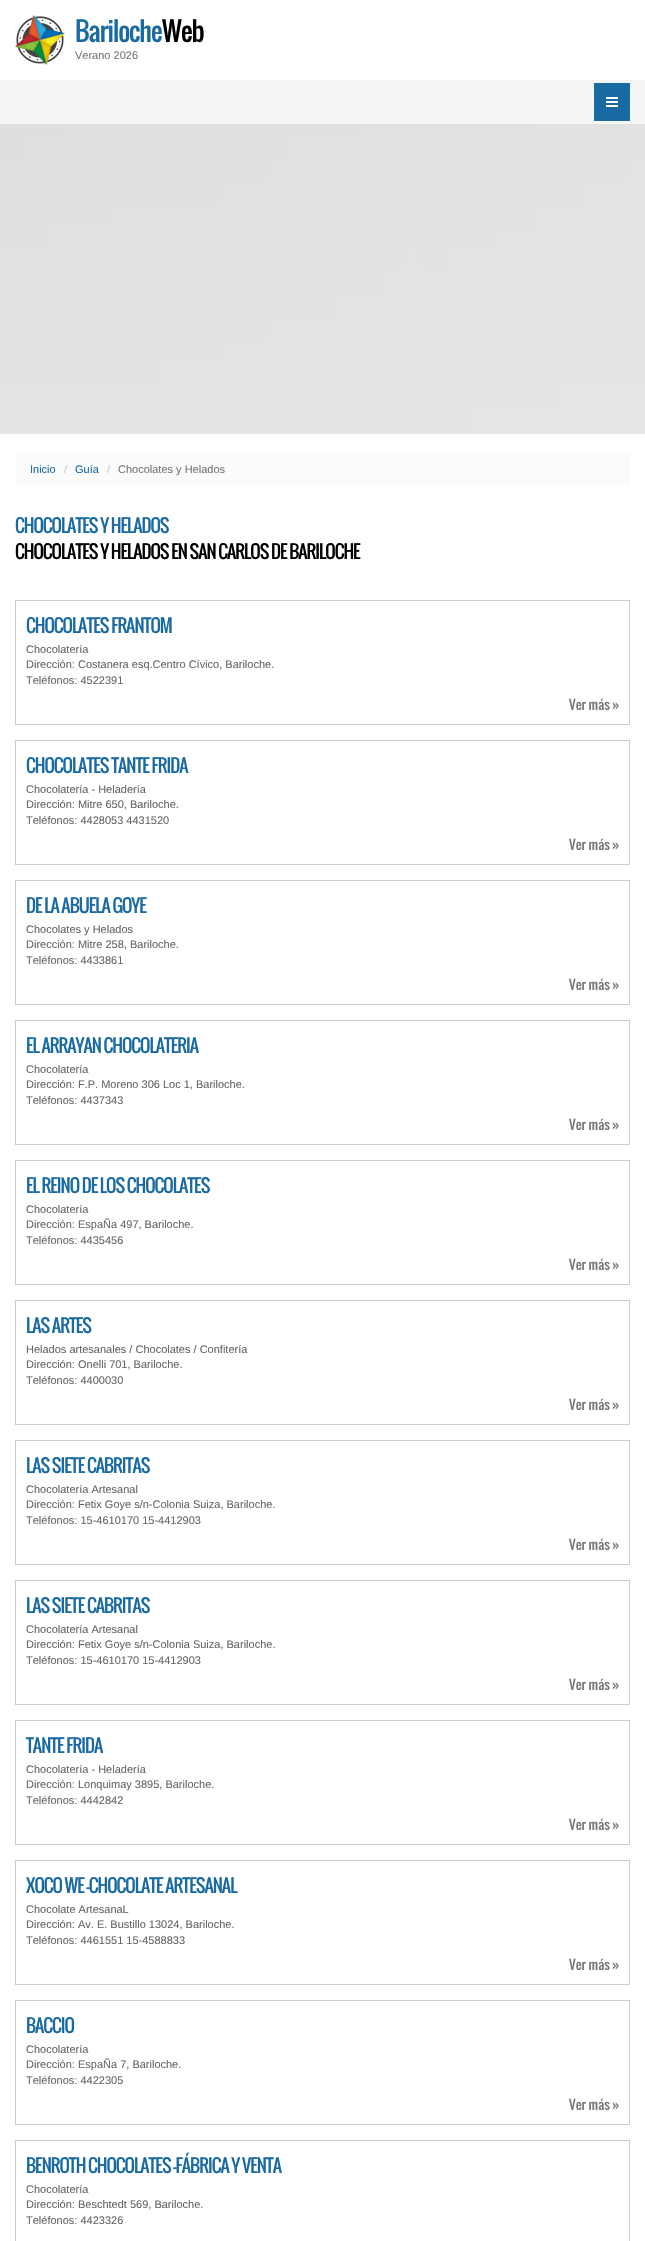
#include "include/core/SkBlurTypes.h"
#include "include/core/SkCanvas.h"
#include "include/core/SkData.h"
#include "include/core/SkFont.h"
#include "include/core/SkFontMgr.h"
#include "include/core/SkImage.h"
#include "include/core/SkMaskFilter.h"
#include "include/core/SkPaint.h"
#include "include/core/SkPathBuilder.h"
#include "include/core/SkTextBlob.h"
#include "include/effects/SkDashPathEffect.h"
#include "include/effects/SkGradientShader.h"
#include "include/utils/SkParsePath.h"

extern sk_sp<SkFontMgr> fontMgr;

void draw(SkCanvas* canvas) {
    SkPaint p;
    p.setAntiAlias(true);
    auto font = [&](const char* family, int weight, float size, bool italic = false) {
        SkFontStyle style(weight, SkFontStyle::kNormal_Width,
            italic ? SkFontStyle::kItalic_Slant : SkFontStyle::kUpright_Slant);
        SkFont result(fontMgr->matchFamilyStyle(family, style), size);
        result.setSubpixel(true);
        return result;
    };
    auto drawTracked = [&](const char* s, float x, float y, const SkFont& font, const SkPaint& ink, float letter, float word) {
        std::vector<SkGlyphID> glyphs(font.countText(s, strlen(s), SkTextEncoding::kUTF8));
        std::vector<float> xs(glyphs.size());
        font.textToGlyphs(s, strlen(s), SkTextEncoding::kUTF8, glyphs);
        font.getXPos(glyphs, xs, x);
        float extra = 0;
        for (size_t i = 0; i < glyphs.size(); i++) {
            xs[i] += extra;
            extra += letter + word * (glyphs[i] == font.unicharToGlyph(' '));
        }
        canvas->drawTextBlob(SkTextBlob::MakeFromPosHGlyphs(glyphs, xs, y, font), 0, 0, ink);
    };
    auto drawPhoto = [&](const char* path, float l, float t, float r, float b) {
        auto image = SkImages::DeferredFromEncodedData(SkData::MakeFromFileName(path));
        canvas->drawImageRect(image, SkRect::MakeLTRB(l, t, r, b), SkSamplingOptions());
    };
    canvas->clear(0xFFFFFFFF);
    drawPhoto("media/1.png", 0, 124, 645, 434);
    drawPhoto("media/2.png", 15, 15, 65, 65);
    auto font1 = font("Oswald", 400, 26);
    p.setColor(0xFF196AA2);
    drawTracked("Bariloche", 75, 42, font1, p, -1, 0);
    p.setColor(0xFF000000);
    drawTracked("Web", 162, 42, font1, p, -1, 0);
    auto font2 = font("Liberation Sans", 400, 11);
    p.setColor(0xFF777777);
    canvas->drawString("Verano 2026", 75, 59, font2, p);
    p.setColor(0xFFF5F5F5);
    canvas->drawRect(SkRect::MakeLTRB(0, 80, 645, 124), p);
    p.setColor(0xFF196AA2);
    canvas->drawRect(SkRect::MakeLTRB(594, 83, 630, 121), p);
    drawPhoto("media/3.png", 606, 97, 618, 107);
    p.setColor(0xFFFBFBFB);
    canvas->drawRect(SkRect::MakeLTRB(15, 454, 630, 486), p);
    p.setColor(0xFF196AA2);
    canvas->drawString("Inicio", 30, 473, font2, p);
    p.setColor(0xFFCCCCCC);
    canvas->drawString("/", 64, 473, font2, p);
    p.setColor(0xFF196AA2);
    canvas->drawString("Guía", 75, 473, font2, p);
    p.setColor(0xFFCCCCCC);
    canvas->drawString("/", 107, 473, font2, p);
    p.setColor(0xFF777777);
    canvas->drawString("Chocolates y Helados", 118, 473, font2, p);
    auto font3 = font("Oswald", 400, 18);
    p.setColor(0xFF196AA2);
    drawTracked("CHOCOLATES Y HELADOS", 15, 533, font3, p, -1, 0);
    p.setColor(0xFF000000);
    drawTracked("CHOCOLATES Y HELADOS EN SAN CARLOS DE BARILOCHE", 15, 559, font3, p, -1, 0);
    p.setStyle(SkPaint::kStroke_Style);
    p.setStrokeWidth(1);
    p.setColor(0xFFCCCCCC);
    canvas->drawRect(SkRect::MakeLTRB(15.5f, 600.5f, 629.5f, 724.5f), p);
    p.setStyle(SkPaint::kFill_Style);
    p.setColor(0xFF196AA2);
    drawTracked("CHOCOLATES FRANTOM", 26, 633, font3, p, -1, 0);
    p.setColor(0xFF666666);
    {
        const struct { const char* s; float x, y; } items[] = {
            {"Chocolatería", 26, 653},
            {"Dirección: Costanera esq.Centro Cívico, Bariloche.", 26, 668},
            {"Teléfonos: 4522391", 26, 684},
        };
        for (auto [s, x, y] : items) {
            canvas->drawString(s, x, y, font2, p);
        }
    }
    auto font4 = font("Oswald", 400, 13);
    p.setColor(0xFF777777);
    canvas->drawString("Ver más »", 569, 710, font4, p);
    p.setStyle(SkPaint::kStroke_Style);
    p.setColor(0xFFCCCCCC);
    canvas->drawRect(SkRect::MakeLTRB(15.5f, 740.5f, 629.5f, 864.5f), p);
    p.setStyle(SkPaint::kFill_Style);
    p.setColor(0xFF196AA2);
    drawTracked("CHOCOLATES TANTE FRIDA", 26, 773, font3, p, -1, 0);
    p.setColor(0xFF666666);
    {
        const struct { const char* s; float x, y; } items[] = {
            {"Chocolatería - Heladería", 26, 793},
            {"Dirección: Mitre 650, Bariloche.", 26, 808},
            {"Teléfonos: 4428053 4431520", 26, 824},
        };
        for (auto [s, x, y] : items) {
            canvas->drawString(s, x, y, font2, p);
        }
    }
    p.setColor(0xFF777777);
    canvas->drawString("Ver más »", 569, 850, font4, p);
    p.setStyle(SkPaint::kStroke_Style);
    p.setColor(0xFFCCCCCC);
    canvas->drawRect(SkRect::MakeLTRB(15.5f, 880.5f, 629.5f, 1004.5f), p);
    p.setStyle(SkPaint::kFill_Style);
    p.setColor(0xFF196AA2);
    drawTracked("DE LA ABUELA GOYE", 26, 913, font3, p, -1, 0);
    p.setColor(0xFF666666);
    {
        const struct { const char* s; float x, y; } items[] = {
            {"Chocolates y Helados", 26, 933},
            {"Dirección: Mitre 258, Bariloche.", 26, 948},
            {"Teléfonos: 4433861", 26, 964},
        };
        for (auto [s, x, y] : items) {
            canvas->drawString(s, x, y, font2, p);
        }
    }
    p.setColor(0xFF777777);
    canvas->drawString("Ver más »", 569, 990, font4, p);
    p.setStyle(SkPaint::kStroke_Style);
    p.setColor(0xFFCCCCCC);
    canvas->drawRect(SkRect::MakeLTRB(15.5f, 1020.5f, 629.5f, 1144.5f), p);
    p.setStyle(SkPaint::kFill_Style);
    p.setColor(0xFF196AA2);
    drawTracked("EL ARRAYAN CHOCOLATERIA", 26, 1053, font3, p, -1, 0);
    p.setColor(0xFF666666);
    {
        const struct { const char* s; float x, y; } items[] = {
            {"Chocolatería", 26, 1073},
            {"Dirección: F.P. Moreno 306 Loc 1, Bariloche.", 26, 1088},
            {"Teléfonos: 4437343", 26, 1104},
        };
        for (auto [s, x, y] : items) {
            canvas->drawString(s, x, y, font2, p);
        }
    }
    p.setColor(0xFF777777);
    canvas->drawString("Ver más »", 569, 1130, font4, p);
    p.setStyle(SkPaint::kStroke_Style);
    p.setColor(0xFFCCCCCC);
    canvas->drawRect(SkRect::MakeLTRB(15.5f, 1160.5f, 629.5f, 1284.5f), p);
    p.setStyle(SkPaint::kFill_Style);
    p.setColor(0xFF196AA2);
    drawTracked("EL REINO DE LOS CHOCOLATES", 26, 1193, font3, p, -1, 0);
    p.setColor(0xFF666666);
    {
        const struct { const char* s; float x, y; } items[] = {
            {"Chocolatería", 26, 1213},
            {"Dirección: EspaÑa 497, Bariloche.", 26, 1228},
            {"Teléfonos: 4435456", 26, 1244},
        };
        for (auto [s, x, y] : items) {
            canvas->drawString(s, x, y, font2, p);
        }
    }
    p.setColor(0xFF777777);
    canvas->drawString("Ver más »", 569, 1270, font4, p);
    p.setStyle(SkPaint::kStroke_Style);
    p.setColor(0xFFCCCCCC);
    canvas->drawRect(SkRect::MakeLTRB(15.5f, 1300.5f, 629.5f, 1424.5f), p);
    p.setStyle(SkPaint::kFill_Style);
    p.setColor(0xFF196AA2);
    drawTracked("LAS ARTES", 26, 1333, font3, p, -1, 0);
    p.setColor(0xFF666666);
    {
        const struct { const char* s; float x, y; } items[] = {
            {"Helados artesanales / Chocolates / Confitería", 26, 1353},
            {"Dirección: Onelli 701, Bariloche.", 26, 1368},
            {"Teléfonos: 4400030", 26, 1384},
        };
        for (auto [s, x, y] : items) {
            canvas->drawString(s, x, y, font2, p);
        }
    }
    p.setColor(0xFF777777);
    canvas->drawString("Ver más »", 569, 1410, font4, p);
    p.setStyle(SkPaint::kStroke_Style);
    p.setColor(0xFFCCCCCC);
    canvas->drawRect(SkRect::MakeLTRB(15.5f, 1440.5f, 629.5f, 1564.5f), p);
    p.setStyle(SkPaint::kFill_Style);
    p.setColor(0xFF196AA2);
    drawTracked("LAS SIETE CABRITAS", 26, 1473, font3, p, -1, 0);
    p.setColor(0xFF666666);
    {
        const struct { const char* s; float x, y; } items[] = {
            {"Chocolatería Artesanal", 26, 1493},
            {"Dirección: Fetix Goye s/n-Colonia Suiza, Bariloche.", 26, 1508},
            {"Teléfonos: 15-4610170 15-4412903", 26, 1524},
        };
        for (auto [s, x, y] : items) {
            canvas->drawString(s, x, y, font2, p);
        }
    }
    p.setColor(0xFF777777);
    canvas->drawString("Ver más »", 569, 1550, font4, p);
    p.setStyle(SkPaint::kStroke_Style);
    p.setColor(0xFFCCCCCC);
    canvas->drawRect(SkRect::MakeLTRB(15.5f, 1580.5f, 629.5f, 1704.5f), p);
    p.setStyle(SkPaint::kFill_Style);
    p.setColor(0xFF196AA2);
    drawTracked("LAS SIETE CABRITAS", 26, 1613, font3, p, -1, 0);
    p.setColor(0xFF666666);
    {
        const struct { const char* s; float x, y; } items[] = {
            {"Chocolatería Artesanal", 26, 1633},
            {"Dirección: Fetix Goye s/n-Colonia Suiza, Bariloche.", 26, 1648},
            {"Teléfonos: 15-4610170 15-4412903", 26, 1664},
        };
        for (auto [s, x, y] : items) {
            canvas->drawString(s, x, y, font2, p);
        }
    }
    p.setColor(0xFF777777);
    canvas->drawString("Ver más »", 569, 1690, font4, p);
    p.setStyle(SkPaint::kStroke_Style);
    p.setColor(0xFFCCCCCC);
    canvas->drawRect(SkRect::MakeLTRB(15.5f, 1720.5f, 629.5f, 1844.5f), p);
    p.setStyle(SkPaint::kFill_Style);
    p.setColor(0xFF196AA2);
    drawTracked("TANTE FRIDA", 26, 1753, font3, p, -1, 0);
    p.setColor(0xFF666666);
    {
        const struct { const char* s; float x, y; } items[] = {
            {"Chocolatería - Heladería", 26, 1773},
            {"Dirección: Lonquimay 3895, Bariloche.", 26, 1788},
            {"Teléfonos: 4442842", 26, 1804},
        };
        for (auto [s, x, y] : items) {
            canvas->drawString(s, x, y, font2, p);
        }
    }
    p.setColor(0xFF777777);
    canvas->drawString("Ver más »", 569, 1830, font4, p);
    p.setStyle(SkPaint::kStroke_Style);
    p.setColor(0xFFCCCCCC);
    canvas->drawRect(SkRect::MakeLTRB(15.5f, 1860.5f, 629.5f, 1984.5f), p);
    p.setStyle(SkPaint::kFill_Style);
    p.setColor(0xFF196AA2);
    drawTracked("XOCO WE -CHOCOLATE ARTESANAL", 26, 1893, font3, p, -1, 0);
    p.setColor(0xFF666666);
    {
        const struct { const char* s; float x, y; } items[] = {
            {"Chocolate ArtesanaL", 26, 1913},
            {"Dirección: Av. E. Bustillo 13024, Bariloche.", 26, 1928},
            {"Teléfonos: 4461551 15-4588833", 26, 1944},
        };
        for (auto [s, x, y] : items) {
            canvas->drawString(s, x, y, font2, p);
        }
    }
    p.setColor(0xFF777777);
    canvas->drawString("Ver más »", 569, 1970, font4, p);
    p.setStyle(SkPaint::kStroke_Style);
    p.setColor(0xFFCCCCCC);
    canvas->drawRect(SkRect::MakeLTRB(15.5f, 2000.5f, 629.5f, 2124.5f), p);
    p.setStyle(SkPaint::kFill_Style);
    p.setColor(0xFF196AA2);
    drawTracked("BACCIO", 26, 2033, font3, p, -1, 0);
    p.setColor(0xFF666666);
    {
        const struct { const char* s; float x, y; } items[] = {
            {"Chocolatería", 26, 2053},
            {"Dirección: EspaÑa 7, Bariloche.", 26, 2068},
            {"Teléfonos: 4422305", 26, 2084},
        };
        for (auto [s, x, y] : items) {
            canvas->drawString(s, x, y, font2, p);
        }
    }
    p.setColor(0xFF777777);
    canvas->drawString("Ver más »", 569, 2110, font4, p);
    p.setStyle(SkPaint::kStroke_Style);
    p.setColor(0xFFCCCCCC);
    canvas->drawRect(SkRect::MakeLTRB(15.5f, 2140.5f, 629.5f, 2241.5f), p);
    p.setStyle(SkPaint::kFill_Style);
    p.setColor(0xFF196AA2);
    drawTracked("BENROTH CHOCOLATES -FÁBRICA Y VENTA", 26, 2173, font3, p, -1, 0);
    p.setColor(0xFF666666);
    {
        const struct { const char* s; float x, y; } items[] = {
            {"Chocolatería", 26, 2193},
            {"Dirección: Beschtedt 569, Bariloche.", 26, 2208},
            {"Teléfonos: 4423326", 26, 2224},
        };
        for (auto [s, x, y] : items) {
            canvas->drawString(s, x, y, font2, p);
        }
    }
}
